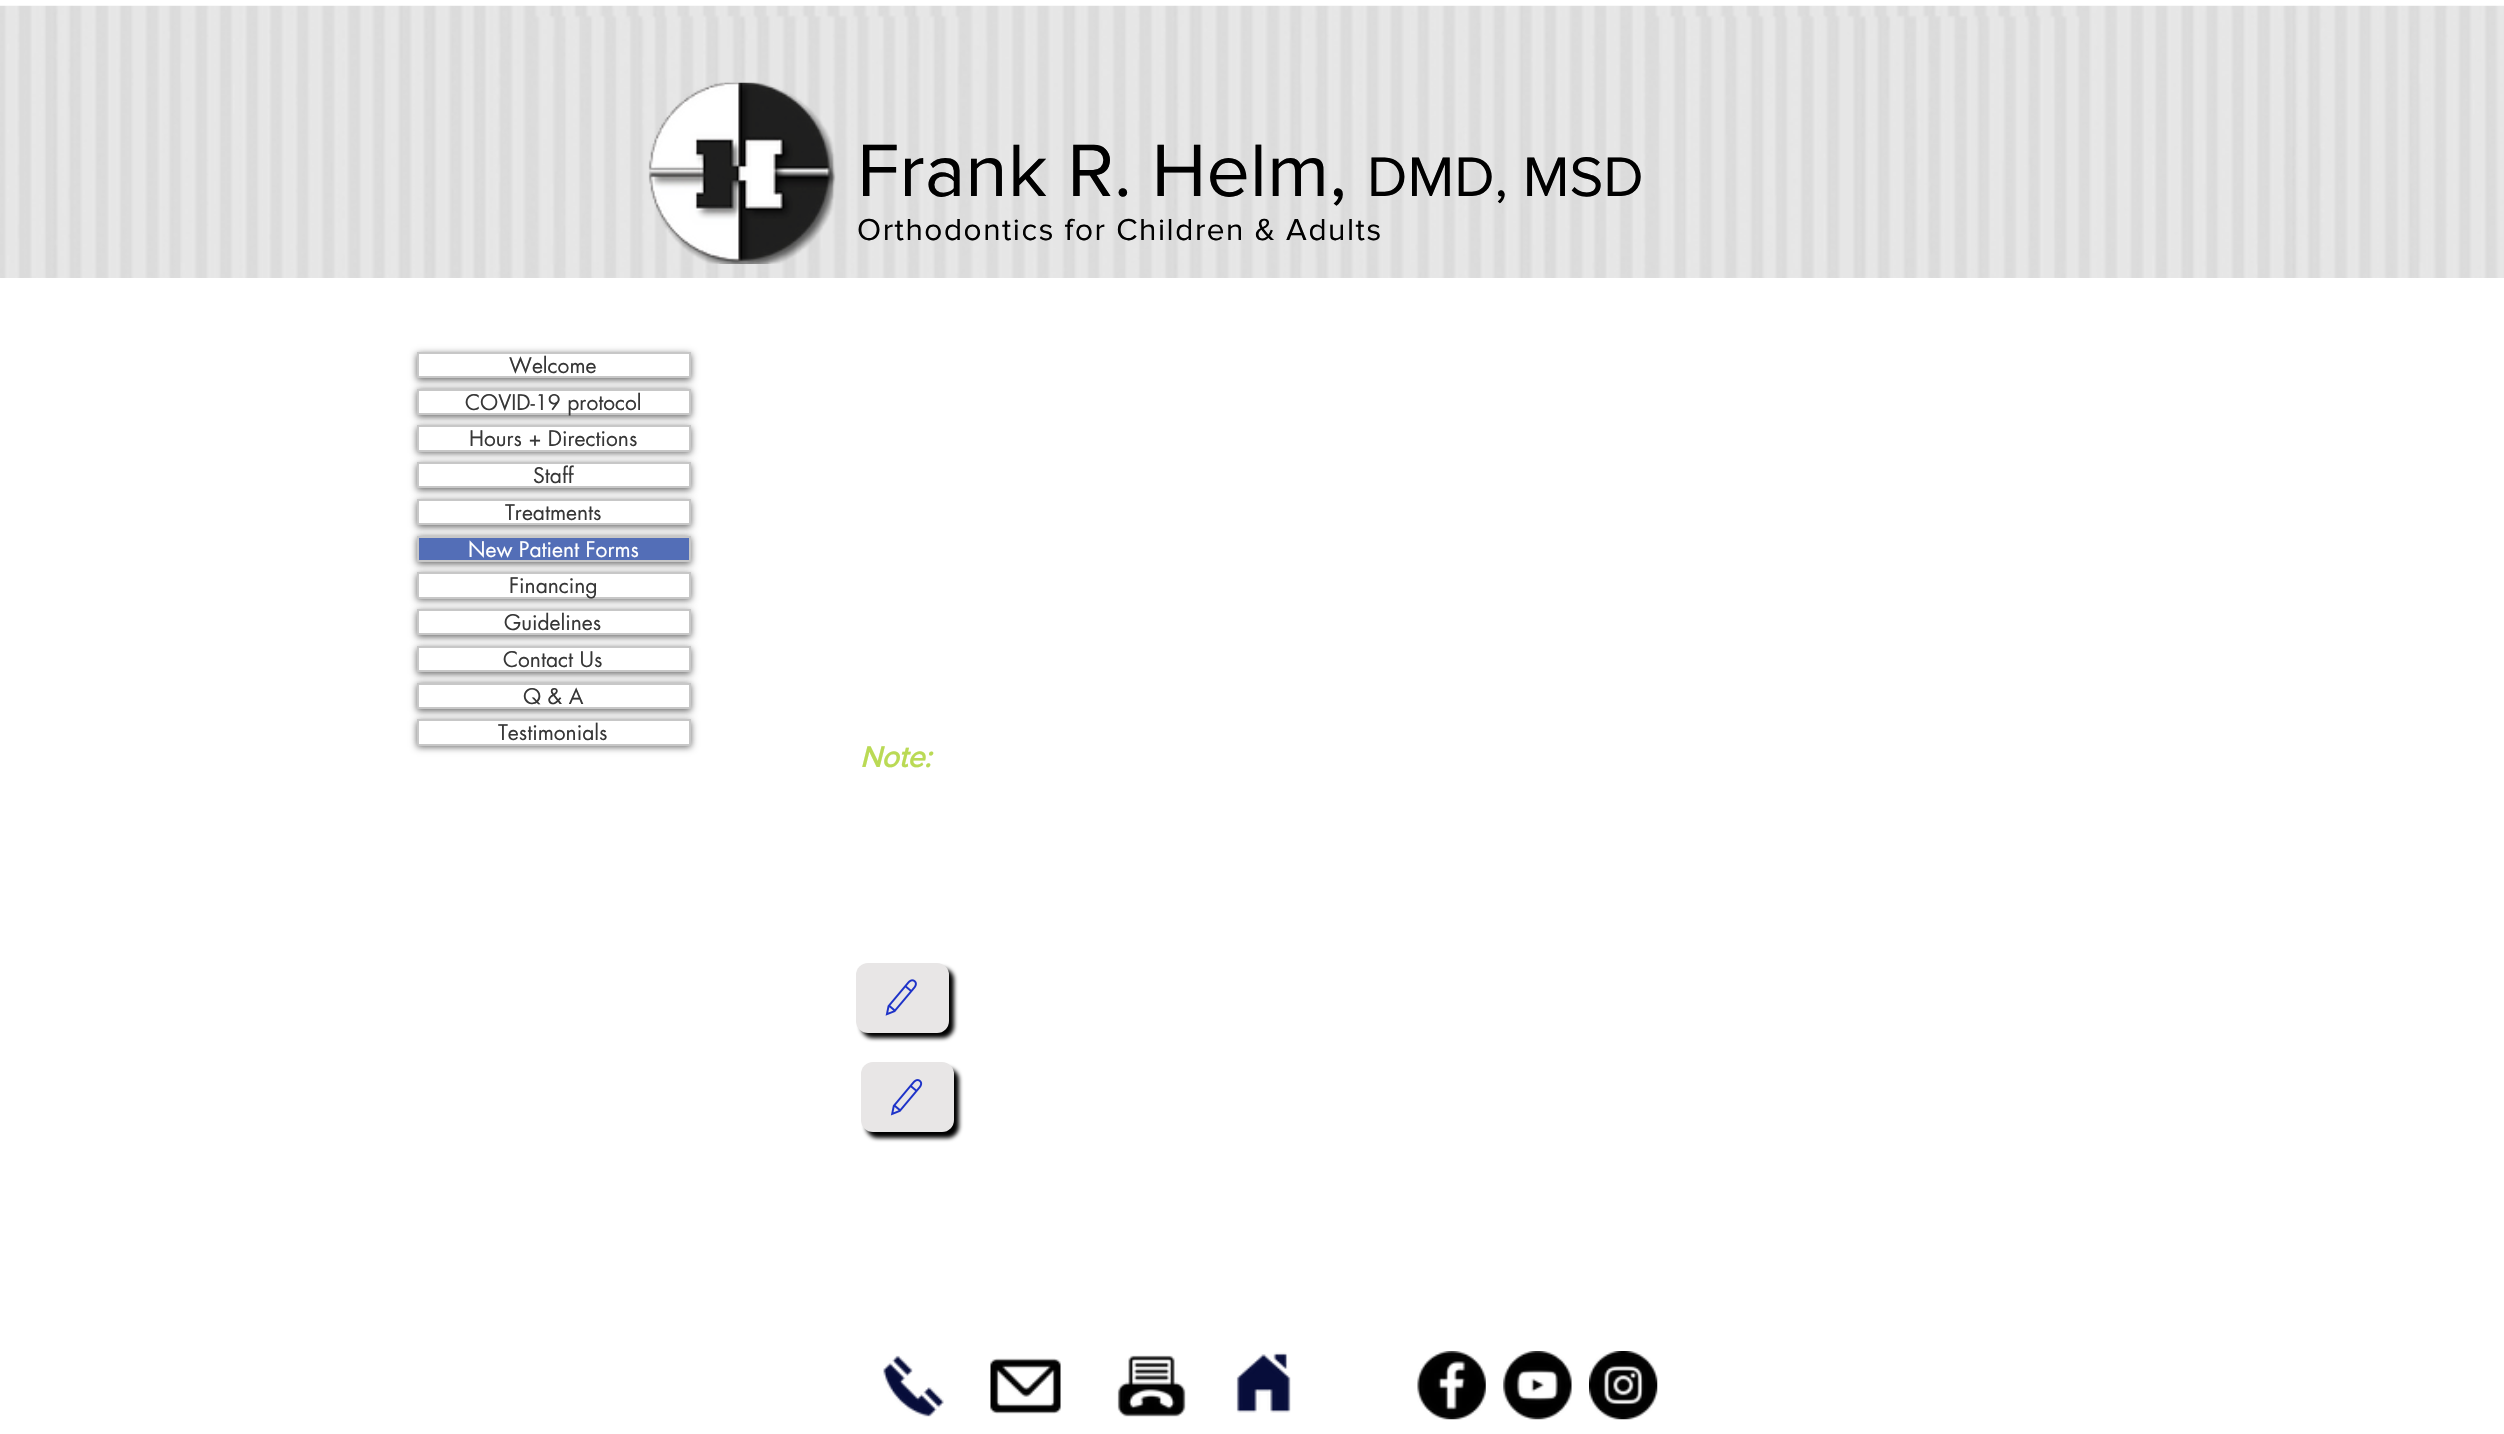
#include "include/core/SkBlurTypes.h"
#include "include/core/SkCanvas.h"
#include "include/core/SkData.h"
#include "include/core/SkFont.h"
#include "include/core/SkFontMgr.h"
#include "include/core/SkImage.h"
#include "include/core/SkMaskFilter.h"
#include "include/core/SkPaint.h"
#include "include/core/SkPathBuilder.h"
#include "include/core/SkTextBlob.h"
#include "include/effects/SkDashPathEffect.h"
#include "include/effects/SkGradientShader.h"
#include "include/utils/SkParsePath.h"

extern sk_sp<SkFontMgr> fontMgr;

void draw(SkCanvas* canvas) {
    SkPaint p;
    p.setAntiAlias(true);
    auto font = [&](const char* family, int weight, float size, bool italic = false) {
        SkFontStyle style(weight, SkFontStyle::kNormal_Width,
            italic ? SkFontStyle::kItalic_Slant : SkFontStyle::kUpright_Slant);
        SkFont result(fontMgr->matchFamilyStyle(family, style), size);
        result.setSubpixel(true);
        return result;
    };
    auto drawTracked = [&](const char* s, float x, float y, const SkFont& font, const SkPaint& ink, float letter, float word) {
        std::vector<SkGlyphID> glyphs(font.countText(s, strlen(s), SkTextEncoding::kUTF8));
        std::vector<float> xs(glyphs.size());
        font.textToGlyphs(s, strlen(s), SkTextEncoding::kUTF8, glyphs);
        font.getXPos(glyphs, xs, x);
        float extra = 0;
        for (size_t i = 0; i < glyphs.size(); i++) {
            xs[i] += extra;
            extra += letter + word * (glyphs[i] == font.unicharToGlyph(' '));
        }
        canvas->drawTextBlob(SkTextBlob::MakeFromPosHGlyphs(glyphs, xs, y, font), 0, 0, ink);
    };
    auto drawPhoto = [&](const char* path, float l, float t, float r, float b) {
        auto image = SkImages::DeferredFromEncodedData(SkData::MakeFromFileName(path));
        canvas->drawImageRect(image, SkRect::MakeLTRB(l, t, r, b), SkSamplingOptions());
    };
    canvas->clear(0xFFFFFFFF);
    drawPhoto("media/1.png", 0, 5, 2504, 278);
    drawPhoto("media/2.png", 648, 82, 836, 264);
    auto font1 = font("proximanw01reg", 400, 77);
    p.setColor(0xFF000000);
    canvas->drawString("Frank R. Helm,", 857, 196, font1, p);
    auto font2 = font("proximanw01reg", 400, 57.75f);
    canvas->drawString("DMD, MSD", 1367, 196, font2, p);
    auto font3 = font("proximanw01reg", 400, 31.5f);
    drawTracked("Orthodontics for Children & Adults", 857, 240, font3, p, 1.55f, 0);
    canvas->save();
    canvas->clipPath(SkPathBuilder(SkPathFillType::kEvenOdd).moveTo(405, 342).lineTo(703, 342).lineTo(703, 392).lineTo(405, 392).close().moveTo(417, 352).lineTo(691, 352).lineTo(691, 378).lineTo(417, 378).close().detach(), true);
    p.setColor(0x99000000);
    p.setMaskFilter(SkMaskFilter::MakeBlur(kNormal_SkBlurStyle, 3.5f));
    canvas->drawRect(SkRect::MakeLTRB(417, 354, 691, 380), p);
    p.setMaskFilter(nullptr);
    canvas->restore();
    p.setStyle(SkPaint::kStroke_Style);
    p.setStrokeWidth(2);
    p.setColor(0xFFC7C7C7);
    canvas->drawRect(SkRect::MakeLTRB(418, 353, 690, 377), p);
    auto font4 = font("futura", 400, 21);
    p.setStyle(SkPaint::kFill_Style);
    p.setColor(0xFF373737);
    canvas->drawString("Welcome", 509, 373, font4, p);
    p.setColor(0x99000000);
    p.setMaskFilter(SkMaskFilter::MakeBlur(kNormal_SkBlurStyle, 3.5f));
    canvas->drawRect(SkRect::MakeLTRB(417, 390, 691, 417), p);
    p.setMaskFilter(nullptr);
    p.setColor(0xFFFFFFFF);
    canvas->drawRect(SkRect::MakeLTRB(418, 390, 690, 414), p);
    p.setStyle(SkPaint::kStroke_Style);
    p.setColor(0xFFC7C7C7);
    canvas->drawRect(SkRect::MakeLTRB(418, 390, 690, 414), p);
    p.setStyle(SkPaint::kFill_Style);
    p.setColor(0xFF373737);
    canvas->drawString("COVID-19 protocol", 465, 410, font4, p);
    p.setColor(0x99000000);
    p.setMaskFilter(SkMaskFilter::MakeBlur(kNormal_SkBlurStyle, 3.5f));
    canvas->drawRect(SkRect::MakeLTRB(417, 427, 691, 453), p);
    p.setMaskFilter(nullptr);
    p.setColor(0xFFFFFFFF);
    canvas->drawRect(SkRect::MakeLTRB(418, 426, 690, 451), p);
    p.setStyle(SkPaint::kStroke_Style);
    p.setColor(0xFFC7C7C7);
    canvas->drawRect(SkRect::MakeLTRB(418, 426, 690, 451), p);
    p.setStyle(SkPaint::kFill_Style);
    p.setColor(0xFF373737);
    canvas->drawString("Hours + Directions", 469, 446, font4, p);
    canvas->save();
    canvas->clipPath(SkPathBuilder(SkPathFillType::kEvenOdd).moveTo(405, 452).lineTo(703, 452).lineTo(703, 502).lineTo(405, 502).close().moveTo(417, 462).lineTo(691, 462).lineTo(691, 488).lineTo(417, 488).close().detach(), true);
    p.setColor(0x99000000);
    p.setMaskFilter(SkMaskFilter::MakeBlur(kNormal_SkBlurStyle, 3.5f));
    canvas->drawRect(SkRect::MakeLTRB(417, 464, 691, 490), p);
    p.setMaskFilter(nullptr);
    canvas->restore();
    p.setStyle(SkPaint::kStroke_Style);
    p.setColor(0xFFC7C7C7);
    canvas->drawRect(SkRect::MakeLTRB(418, 463, 690, 487), p);
    p.setStyle(SkPaint::kFill_Style);
    p.setColor(0xFF373737);
    canvas->drawString("Staff", 533, 483, font4, p);
    canvas->save();
    canvas->clipPath(SkPathBuilder(SkPathFillType::kEvenOdd).moveTo(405, 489).lineTo(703, 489).lineTo(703, 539).lineTo(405, 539).close().moveTo(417, 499).lineTo(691, 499).lineTo(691, 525).lineTo(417, 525).close().detach(), true);
    p.setColor(0x99000000);
    p.setMaskFilter(SkMaskFilter::MakeBlur(kNormal_SkBlurStyle, 3.5f));
    canvas->drawRect(SkRect::MakeLTRB(417, 501, 691, 527), p);
    p.setMaskFilter(nullptr);
    canvas->restore();
    p.setStyle(SkPaint::kStroke_Style);
    p.setColor(0xFFC7C7C7);
    canvas->drawRect(SkRect::MakeLTRB(418, 500, 690, 524), p);
    p.setStyle(SkPaint::kFill_Style);
    p.setColor(0xFF373737);
    canvas->drawString("Treatments", 505, 520, font4, p);
    p.setColor(0x99000000);
    p.setMaskFilter(SkMaskFilter::MakeBlur(kNormal_SkBlurStyle, 3.5f));
    canvas->drawRect(SkRect::MakeLTRB(417, 537, 691, 564), p);
    p.setMaskFilter(nullptr);
    p.setColor(0xFF536EB7);
    canvas->drawRect(SkRect::MakeLTRB(418, 537, 690, 561), p);
    p.setStyle(SkPaint::kStroke_Style);
    p.setColor(0xFFC7C7C7);
    canvas->drawRect(SkRect::MakeLTRB(418, 537, 690, 561), p);
    p.setStyle(SkPaint::kFill_Style);
    p.setColor(0xFFFFFFFF);
    canvas->drawString("New Patient Forms", 468, 557, font4, p);
    p.setColor(0x99000000);
    p.setMaskFilter(SkMaskFilter::MakeBlur(kNormal_SkBlurStyle, 3.5f));
    canvas->drawRect(SkRect::MakeLTRB(417, 574, 691, 600), p);
    p.setMaskFilter(nullptr);
    p.setColor(0xFFFFFFFF);
    canvas->drawRect(SkRect::MakeLTRB(418, 573, 690, 598), p);
    p.setStyle(SkPaint::kStroke_Style);
    p.setColor(0xFFC7C7C7);
    canvas->drawRect(SkRect::MakeLTRB(418, 573, 690, 598), p);
    p.setStyle(SkPaint::kFill_Style);
    p.setColor(0xFF373737);
    canvas->drawString("Financing", 509, 593, font4, p);
    canvas->save();
    canvas->clipPath(SkPathBuilder(SkPathFillType::kEvenOdd).moveTo(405, 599).lineTo(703, 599).lineTo(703, 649).lineTo(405, 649).close().moveTo(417, 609).lineTo(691, 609).lineTo(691, 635).lineTo(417, 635).close().detach(), true);
    p.setColor(0x99000000);
    p.setMaskFilter(SkMaskFilter::MakeBlur(kNormal_SkBlurStyle, 3.5f));
    canvas->drawRect(SkRect::MakeLTRB(417, 611, 691, 637), p);
    p.setMaskFilter(nullptr);
    canvas->restore();
    p.setStyle(SkPaint::kStroke_Style);
    p.setColor(0xFFC7C7C7);
    canvas->drawRect(SkRect::MakeLTRB(418, 610, 690, 634), p);
    p.setStyle(SkPaint::kFill_Style);
    p.setColor(0xFF373737);
    canvas->drawString("Guidelines", 504, 630, font4, p);
    canvas->save();
    canvas->clipPath(SkPathBuilder(SkPathFillType::kEvenOdd).moveTo(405, 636).lineTo(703, 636).lineTo(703, 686).lineTo(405, 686).close().moveTo(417, 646).lineTo(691, 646).lineTo(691, 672).lineTo(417, 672).close().detach(), true);
    p.setColor(0x99000000);
    p.setMaskFilter(SkMaskFilter::MakeBlur(kNormal_SkBlurStyle, 3.5f));
    canvas->drawRect(SkRect::MakeLTRB(417, 648, 691, 674), p);
    p.setMaskFilter(nullptr);
    canvas->restore();
    p.setStyle(SkPaint::kStroke_Style);
    p.setColor(0xFFC7C7C7);
    canvas->drawRect(SkRect::MakeLTRB(418, 647, 690, 671), p);
    p.setStyle(SkPaint::kFill_Style);
    p.setColor(0xFF373737);
    canvas->drawString("Contact Us", 503, 667, font4, p);
    p.setColor(0x99000000);
    p.setMaskFilter(SkMaskFilter::MakeBlur(kNormal_SkBlurStyle, 3.5f));
    canvas->drawRect(SkRect::MakeLTRB(417, 684, 691, 711), p);
    p.setMaskFilter(nullptr);
    p.setColor(0xFFFFFFFF);
    canvas->drawRect(SkRect::MakeLTRB(418, 684, 690, 708), p);
    p.setStyle(SkPaint::kStroke_Style);
    p.setColor(0xFFC7C7C7);
    canvas->drawRect(SkRect::MakeLTRB(418, 684, 690, 708), p);
    p.setStyle(SkPaint::kFill_Style);
    p.setColor(0xFF373737);
    canvas->drawString("Q & A", 523, 704, font4, p);
    p.setColor(0x99000000);
    p.setMaskFilter(SkMaskFilter::MakeBlur(kNormal_SkBlurStyle, 3.5f));
    canvas->drawRect(SkRect::MakeLTRB(417, 721, 691, 747), p);
    p.setMaskFilter(nullptr);
    p.setColor(0xFFFFFFFF);
    canvas->drawRect(SkRect::MakeLTRB(418, 720, 690, 745), p);
    p.setStyle(SkPaint::kStroke_Style);
    p.setColor(0xFFC7C7C7);
    canvas->drawRect(SkRect::MakeLTRB(418, 720, 690, 745), p);
    p.setStyle(SkPaint::kFill_Style);
    p.setColor(0xFF373737);
    canvas->drawString("Testimonials", 498, 740, font4, p);
    auto font5 = font("proximanw01reg", 700, 30, true);
    p.setColor(0xFFBADA55);
    canvas->drawString("Note:", 860, 767, font5, p);
    p.setColor(0xFF000000);
    p.setMaskFilter(SkMaskFilter::MakeBlur(kNormal_SkBlurStyle, 2));
    canvas->drawRoundRect(SkRect::MakeLTRB(861, 968, 954, 1038), 12, 12, p);
    p.setMaskFilter(nullptr);
    p.setColor(0xFFE8E6E6);
    canvas->drawRoundRect(SkRect::MakeLTRB(856, 963, 949, 1033), 12, 12, p);
    drawPhoto("media/3.png", 885, 979, 917, 1016);
    p.setColor(0xFF000000);
    p.setMaskFilter(SkMaskFilter::MakeBlur(kNormal_SkBlurStyle, 2));
    canvas->drawRoundRect(SkRect::MakeLTRB(866, 1068, 959, 1138), 12, 12, p);
    p.setMaskFilter(nullptr);
    p.setColor(0xFFE8E6E6);
    canvas->drawRoundRect(SkRect::MakeLTRB(861, 1062, 954, 1132), 12, 12, p);
    drawPhoto("media/4.png", 890, 1079, 923, 1116);
    drawPhoto("media/5.png", 883, 1355, 944, 1417);
    drawPhoto("media/6.png", 990, 1358, 1061, 1414);
    drawPhoto("media/7.png", 1117, 1355, 1186, 1417);
    drawPhoto("media/8.png", 1236, 1352, 1291, 1413);
    drawPhoto("media/9.png", 1417, 1351, 1486, 1420);
    drawPhoto("media/10.png", 1503, 1351, 1572, 1420);
    drawPhoto("media/11.png", 1589, 1351, 1658, 1420);
}
